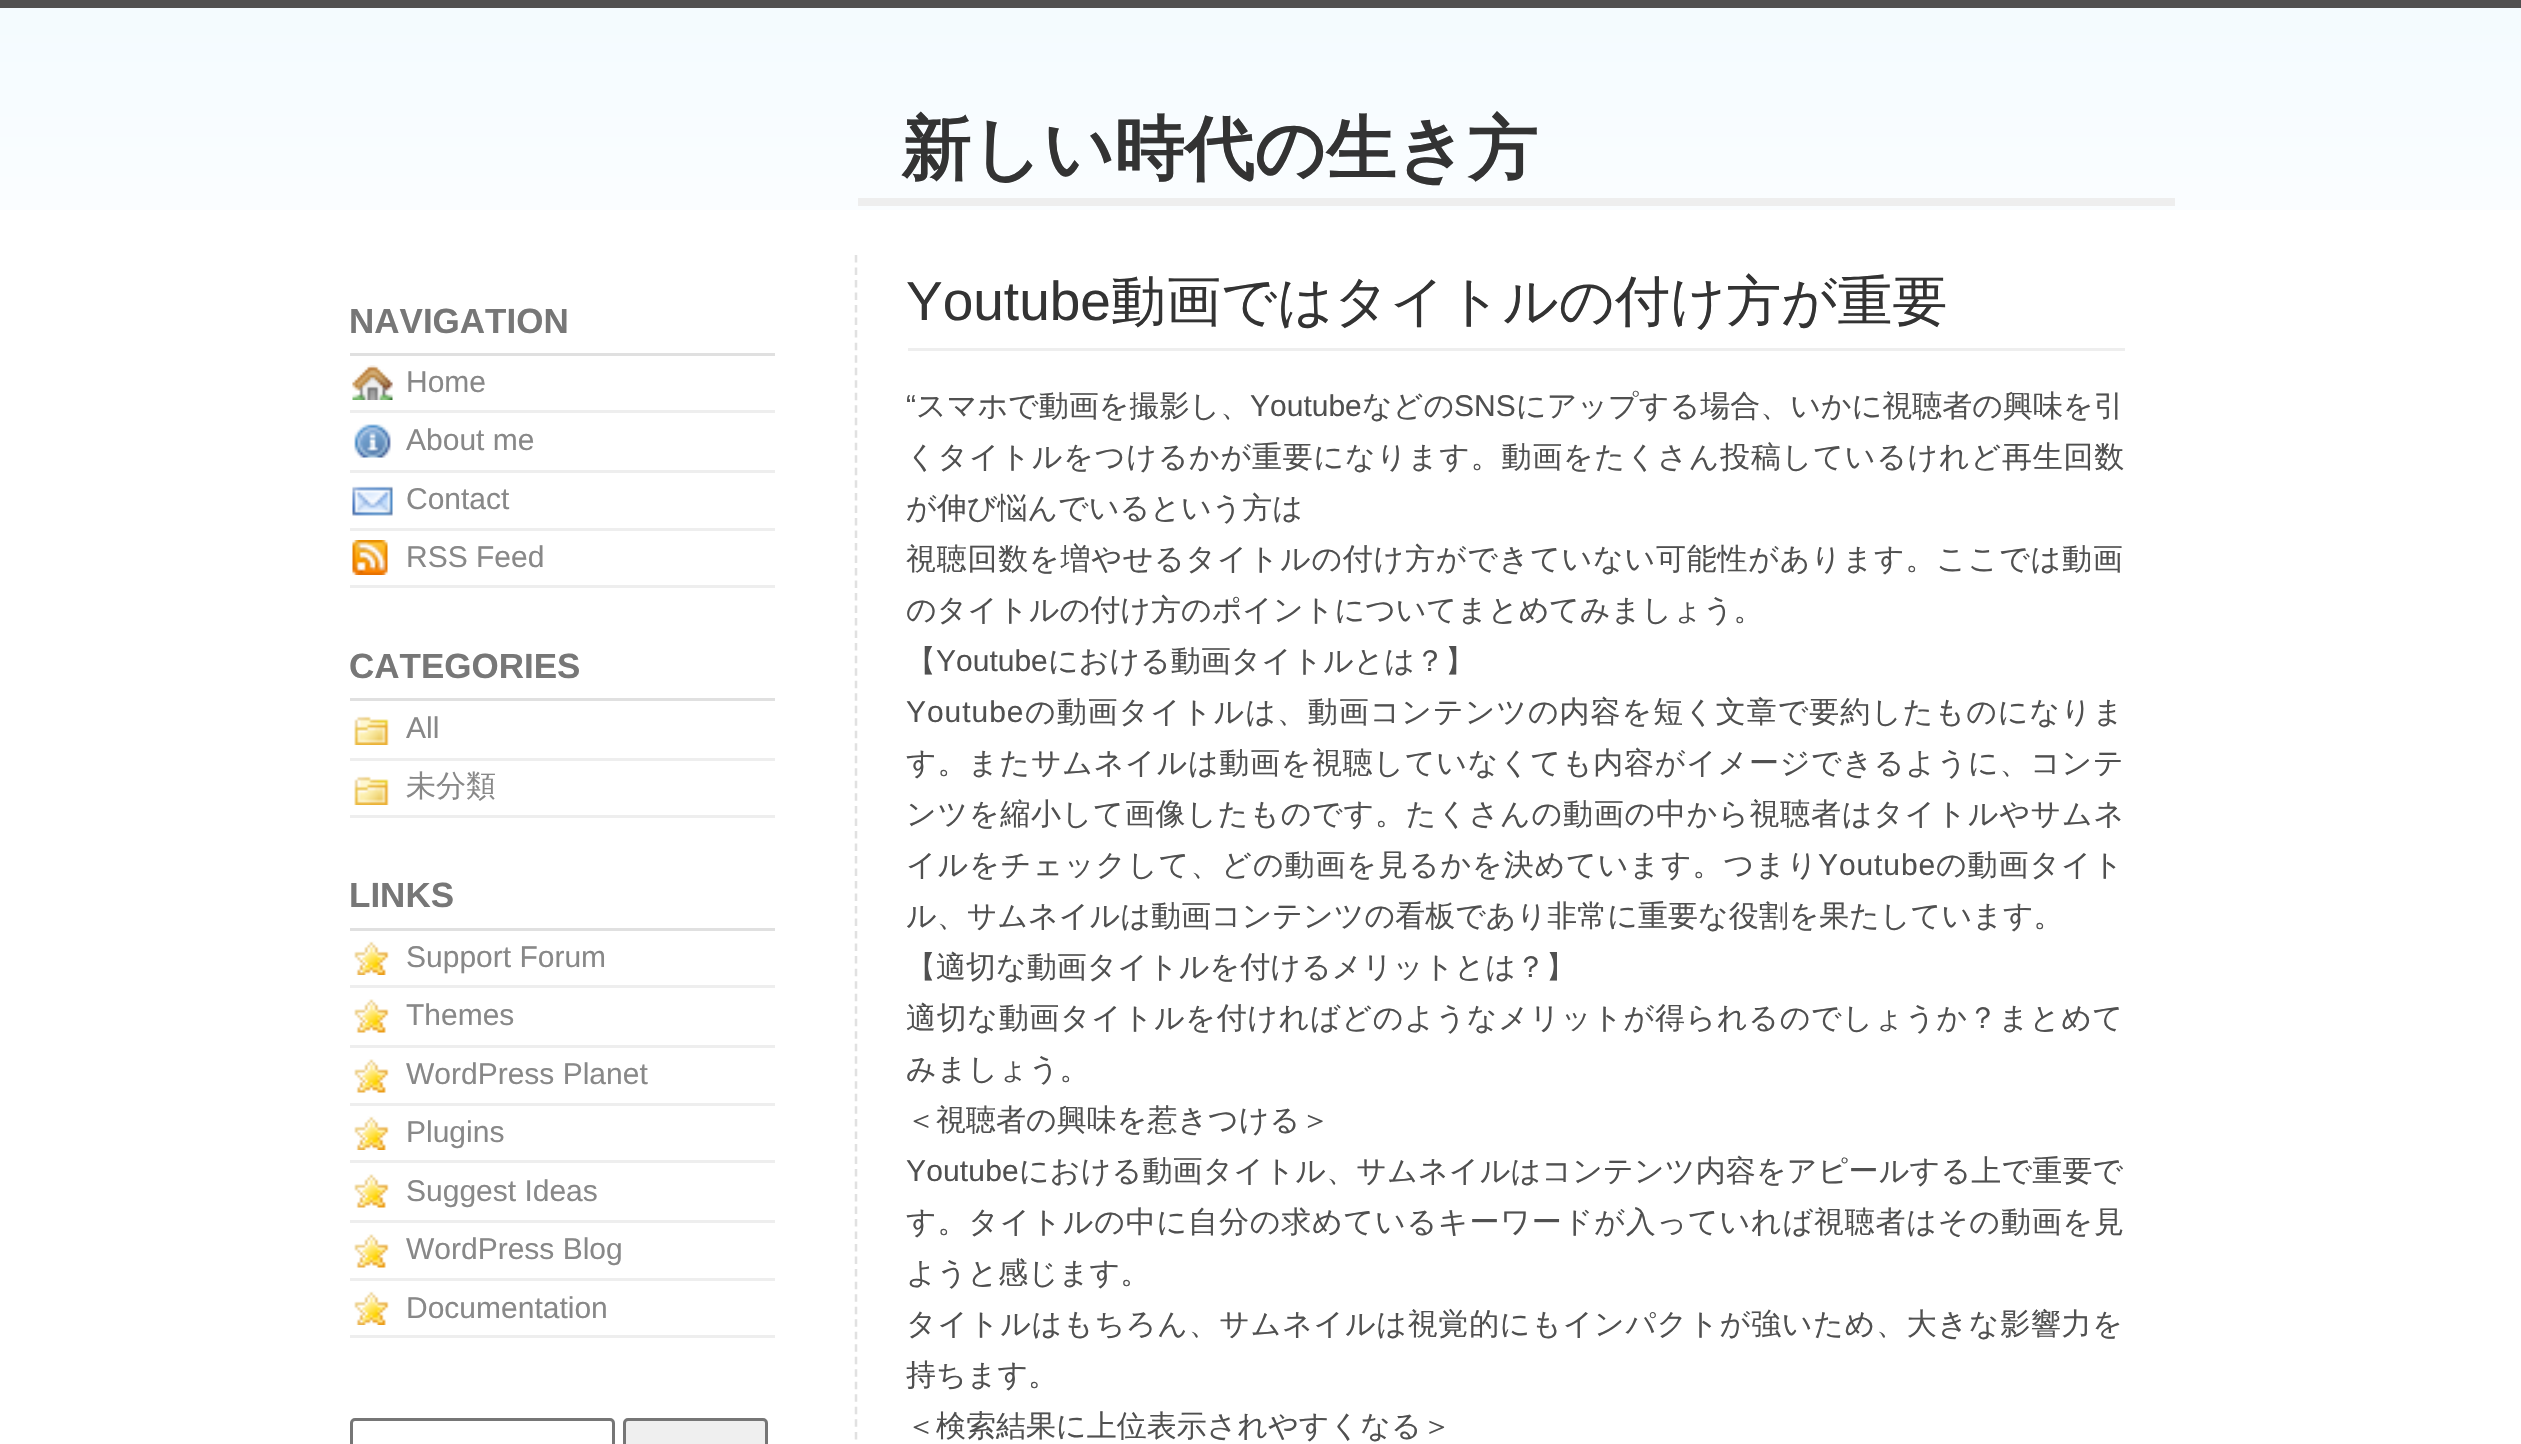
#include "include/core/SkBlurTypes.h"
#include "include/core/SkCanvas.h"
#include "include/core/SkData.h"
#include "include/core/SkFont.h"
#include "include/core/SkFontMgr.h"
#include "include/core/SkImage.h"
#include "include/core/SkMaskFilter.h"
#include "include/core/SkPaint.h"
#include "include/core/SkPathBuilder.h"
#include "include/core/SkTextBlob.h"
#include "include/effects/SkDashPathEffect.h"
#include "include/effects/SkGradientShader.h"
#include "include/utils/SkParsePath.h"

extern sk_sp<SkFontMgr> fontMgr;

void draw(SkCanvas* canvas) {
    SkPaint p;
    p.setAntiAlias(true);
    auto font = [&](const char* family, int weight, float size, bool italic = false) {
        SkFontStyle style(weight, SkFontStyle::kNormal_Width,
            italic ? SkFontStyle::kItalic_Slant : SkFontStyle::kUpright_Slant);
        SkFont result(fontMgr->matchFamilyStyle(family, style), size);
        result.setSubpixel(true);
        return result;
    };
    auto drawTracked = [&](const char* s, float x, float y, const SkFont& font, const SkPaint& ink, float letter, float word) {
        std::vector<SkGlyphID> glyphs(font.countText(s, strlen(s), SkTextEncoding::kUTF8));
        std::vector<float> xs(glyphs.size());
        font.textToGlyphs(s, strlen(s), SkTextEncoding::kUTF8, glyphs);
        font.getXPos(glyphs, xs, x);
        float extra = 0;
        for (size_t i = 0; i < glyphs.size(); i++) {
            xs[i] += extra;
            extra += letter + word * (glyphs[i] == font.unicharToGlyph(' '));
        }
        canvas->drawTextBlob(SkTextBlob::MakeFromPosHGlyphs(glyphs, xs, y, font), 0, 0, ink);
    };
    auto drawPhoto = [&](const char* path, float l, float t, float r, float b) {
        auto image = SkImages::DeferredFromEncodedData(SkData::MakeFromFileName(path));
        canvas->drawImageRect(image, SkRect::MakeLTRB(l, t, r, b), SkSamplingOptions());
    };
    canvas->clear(0xFFFFFFFF);
    drawPhoto("media/1.png", 0, 8, 2521, 210);
    p.setColor(0xFF505050);
    canvas->drawRect(SkRect::MakeLTRB(0, 0, 2521, 8), p);
    p.setColor(0xFFEEEEEE);
    canvas->drawRect(SkRect::MakeLTRB(858, 198, 2175, 206), p);
    auto font1 = font("WenQuanYi Zen Hei", 700, 70);
    p.setColor(0xFF333333);
    canvas->drawString("新しい時代の生き方", 901, 173, font1, p);
    p.setColor(0xFFE0E0E0);
    canvas->drawRect(SkRect::MakeLTRB(350, 353, 775, 356), p);
    auto font2 = font("Liberation Sans", 700, 35);
    p.setColor(0xFF777777);
    canvas->drawString("NAVIGATION", 349, 333, font2, p);
    p.setColor(0xFFEEEEEE);
    canvas->drawRect(SkRect::MakeLTRB(350, 410, 775, 413), p);
    drawPhoto("media/2.png", 352, 365, 393, 400);
    auto font3 = font("Liberation Sans", 400, 30);
    p.setColor(0xFF888888);
    canvas->drawString("Home", 406, 392, font3, p);
    p.setColor(0xFFEEEEEE);
    canvas->drawRect(SkRect::MakeLTRB(350, 470, 775, 473), p);
    drawPhoto("media/3.png", 354, 424, 391, 458);
    p.setColor(0xFF888888);
    canvas->drawString("About me", 406, 450, font3, p);
    p.setColor(0xFFEEEEEE);
    canvas->drawRect(SkRect::MakeLTRB(350, 528, 775, 531), p);
    drawPhoto("media/4.png", 352, 486, 393, 516);
    p.setColor(0xFF888888);
    canvas->drawString("Contact", 406, 509, font3, p);
    p.setColor(0xFFEEEEEE);
    canvas->drawRect(SkRect::MakeLTRB(350, 585, 775, 588), p);
    drawPhoto("media/5.png", 352, 540, 388, 575);
    p.setColor(0xFF888888);
    canvas->drawString("RSS Feed", 406, 567, font3, p);
    p.setColor(0xFFE0E0E0);
    canvas->drawRect(SkRect::MakeLTRB(350, 698, 775, 701), p);
    p.setColor(0xFF777777);
    canvas->drawString("CATEGORIES", 349, 678, font2, p);
    p.setColor(0xFFEEEEEE);
    canvas->drawRect(SkRect::MakeLTRB(350, 758, 775, 761), p);
    drawPhoto("media/6.png", 354, 716, 389, 745);
    p.setColor(0xFF888888);
    canvas->drawString("All", 406, 738, font3, p);
    p.setColor(0xFFEEEEEE);
    canvas->drawRect(SkRect::MakeLTRB(350, 815, 775, 818), p);
    drawPhoto("media/6.png", 354, 776, 389, 805);
    auto font4 = font("WenQuanYi Zen Hei", 500, 30);
    p.setColor(0xFF888888);
    canvas->drawString("未分類", 406, 796, font4, p);
    p.setColor(0xFFE0E0E0);
    canvas->drawRect(SkRect::MakeLTRB(350, 928, 775, 931), p);
    p.setColor(0xFF777777);
    canvas->drawString("LINKS", 349, 907, font2, p);
    p.setColor(0xFFEEEEEE);
    canvas->drawRect(SkRect::MakeLTRB(350, 985, 775, 988), p);
    drawPhoto("media/7.png", 354, 941, 389, 975);
    p.setColor(0xFF888888);
    canvas->drawString("Support Forum", 406, 967, font3, p);
    p.setColor(0xFFEEEEEE);
    canvas->drawRect(SkRect::MakeLTRB(350, 1045, 775, 1048), p);
    drawPhoto("media/8.png", 354, 999, 389, 1033);
    p.setColor(0xFF888888);
    canvas->drawString("Themes", 406, 1025, font3, p);
    p.setColor(0xFFEEEEEE);
    canvas->drawRect(SkRect::MakeLTRB(350, 1103, 775, 1106), p);
    drawPhoto("media/8.png", 354, 1059, 389, 1093);
    p.setColor(0xFF888888);
    canvas->drawString("WordPress Planet", 406, 1084, font3, p);
    p.setColor(0xFFEEEEEE);
    canvas->drawRect(SkRect::MakeLTRB(350, 1160, 775, 1163), p);
    drawPhoto("media/7.png", 354, 1116, 389, 1150);
    p.setColor(0xFF888888);
    canvas->drawString("Plugins", 406, 1142, font3, p);
    p.setColor(0xFFEEEEEE);
    canvas->drawRect(SkRect::MakeLTRB(350, 1220, 775, 1223), p);
    drawPhoto("media/9.png", 354, 1174, 389, 1208);
    p.setColor(0xFF888888);
    canvas->drawString("Suggest Ideas", 406, 1201, font3, p);
    p.setColor(0xFFEEEEEE);
    canvas->drawRect(SkRect::MakeLTRB(350, 1278, 775, 1281), p);
    drawPhoto("media/8.png", 354, 1234, 389, 1268);
    p.setColor(0xFF888888);
    canvas->drawString("WordPress Blog", 406, 1259, font3, p);
    p.setColor(0xFFEEEEEE);
    canvas->drawRect(SkRect::MakeLTRB(350, 1335, 775, 1338), p);
    drawPhoto("media/7.png", 354, 1291, 389, 1325);
    p.setColor(0xFF888888);
    canvas->drawString("Documentation", 406, 1318, font3, p);
    p.setStyle(SkPaint::kStroke_Style);
    p.setStrokeWidth(3);
    p.setColor(0xFF767676);
    canvas->drawRoundRect(SkRect::MakeLTRB(351.5f, 1419.5f, 613.5f, 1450.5f), 3.5f, 3.5f, p);
    p.setStyle(SkPaint::kFill_Style);
    p.setColor(0xFFEFEFEF);
    canvas->drawRoundRect(SkRect::MakeLTRB(624.5f, 1419.5f, 766.5f, 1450.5f), 3.5f, 3.5f, p);
    p.setStyle(SkPaint::kStroke_Style);
    p.setColor(0xFF767676);
    canvas->drawRoundRect(SkRect::MakeLTRB(624.5f, 1419.5f, 766.5f, 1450.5f), 3.5f, 3.5f, p);
    p.setStrokeWidth(2.5f);
    p.setColor(0xFFE1E1E1);
    p.setPathEffect(SkDashPathEffect::Make({{7.5f, 5.02f}}, 0));
    canvas->drawPath(SkPathBuilder().moveTo(856, 255).lineTo(856, 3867.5f).detach(), p);
    p.setPathEffect(nullptr);
    p.setStyle(SkPaint::kFill_Style);
    p.setColor(0xFFEEEEEE);
    canvas->drawRect(SkRect::MakeLTRB(908, 348, 2125, 351), p);
    auto font5 = font("Liberation Sans", 400, 55);
    p.setColor(0xFF333333);
    canvas->drawString("Youtube", 906, 320, font5, p);
    auto font6 = font("WenQuanYi Zen Hei", 500, 55);
    canvas->drawString("動画ではタイトルの付け方が重要", 1111, 320, font6, p);
    p.setColor(0xFF505050);
    canvas->drawString("“", 906, 416, font3, p);
    canvas->drawString("スマホで動画を撮影し、", 916, 416, font4, p);
    canvas->drawString("Youtube", 1250, 416, font3, p);
    canvas->drawString("などの", 1362, 416, font4, p);
    canvas->drawString("SNS", 1454, 416, font3, p);
    canvas->drawString("にアップする場合、いかに視聴者の興味を引", 1516, 416, font4, p);
    drawTracked("くタイトルをつけるかが重要になります。動画をたくさん投稿しているけれど再生回数", 906, 467, font4, p, 0.75f, 0);
    canvas->drawString("が伸び悩んでいるという方は", 906, 518, font4, p);
    drawTracked("視聴回数を増やせるタイトルの付け方ができていない可能性があります。ここでは動画", 906, 569, font4, p, 0.75f, 0);
    canvas->drawString("のタイトルの付け方のポイントについてまとめてみましょう。", 906, 620, font4, p);
    canvas->drawString("【", 906, 671, font4, p);
    canvas->drawString("Youtube", 936, 671, font3, p);
    canvas->drawString("における動画タイトルとは？】", 1048, 671, font4, p);
    drawTracked("Youtube", 906, 722, font3, p, 0.95f, 0);
    drawTracked("の動画タイトルは、動画コンテンツの内容を短く文章で要約したものになりま", 1025, 722, font4, p, 0.95f, 0);
    drawTracked("す。またサムネイルは動画を視聴していなくても内容がイメージできるように、コンテ", 906, 773, font4, p, 0.7f, 0);
    drawTracked("ンツを縮小して画像したものです。たくさんの動画の中から視聴者はタイトルやサムネ", 906, 824, font4, p, 0.75f, 0);
    drawTracked("イルをチェックして、どの動画を見るかを決めています。つまり", 906, 875, font4, p, 0.9f, 0);
    drawTracked("Youtube", 1818, 875, font3, p, 0.9f, 0);
    drawTracked("の動画タイト", 1936, 875, font4, p, 0.9f, 0);
    canvas->drawString("ル、サムネイルは動画コンテンツの看板であり非常に重要な役割を果たしています。", 906, 926, font4, p);
    canvas->drawString("【適切な動画タイトルを付けるメリットとは？】", 906, 977, font4, p);
    drawTracked("適切な動画タイトルを付ければどのようなメリットが得られるのでしょうか？まとめて", 906, 1028, font4, p, 0.65f, 0);
    canvas->drawString("みましょう。", 906, 1079, font4, p);
    canvas->drawString("＜視聴者の興味を惹きつける＞", 906, 1130, font4, p);
    drawTracked("Youtube", 906, 1181, font3, p, 0.15f, 0);
    drawTracked("における動画タイトル、サムネイルはコンテンツ内容をアピールする上で重要で", 1019, 1181, font4, p, 0.15f, 0);
    drawTracked("す。タイトルの中に自分の求めているキーワードが入っていれば視聴者はその動画を見", 906, 1232, font4, p, 0.8f, 0);
    canvas->drawString("ようと感じます。", 906, 1283, font4, p);
    drawTracked("タイトルはもちろん、サムネイルは視覚的にもインパクトが強いため、大きな影響力を", 906, 1334, font4, p, 0.7f, 0);
    canvas->drawString("持ちます。", 906, 1385, font4, p);
    canvas->drawString("＜検索結果に上位表示されやすくなる＞", 906, 1436, font4, p);
}
